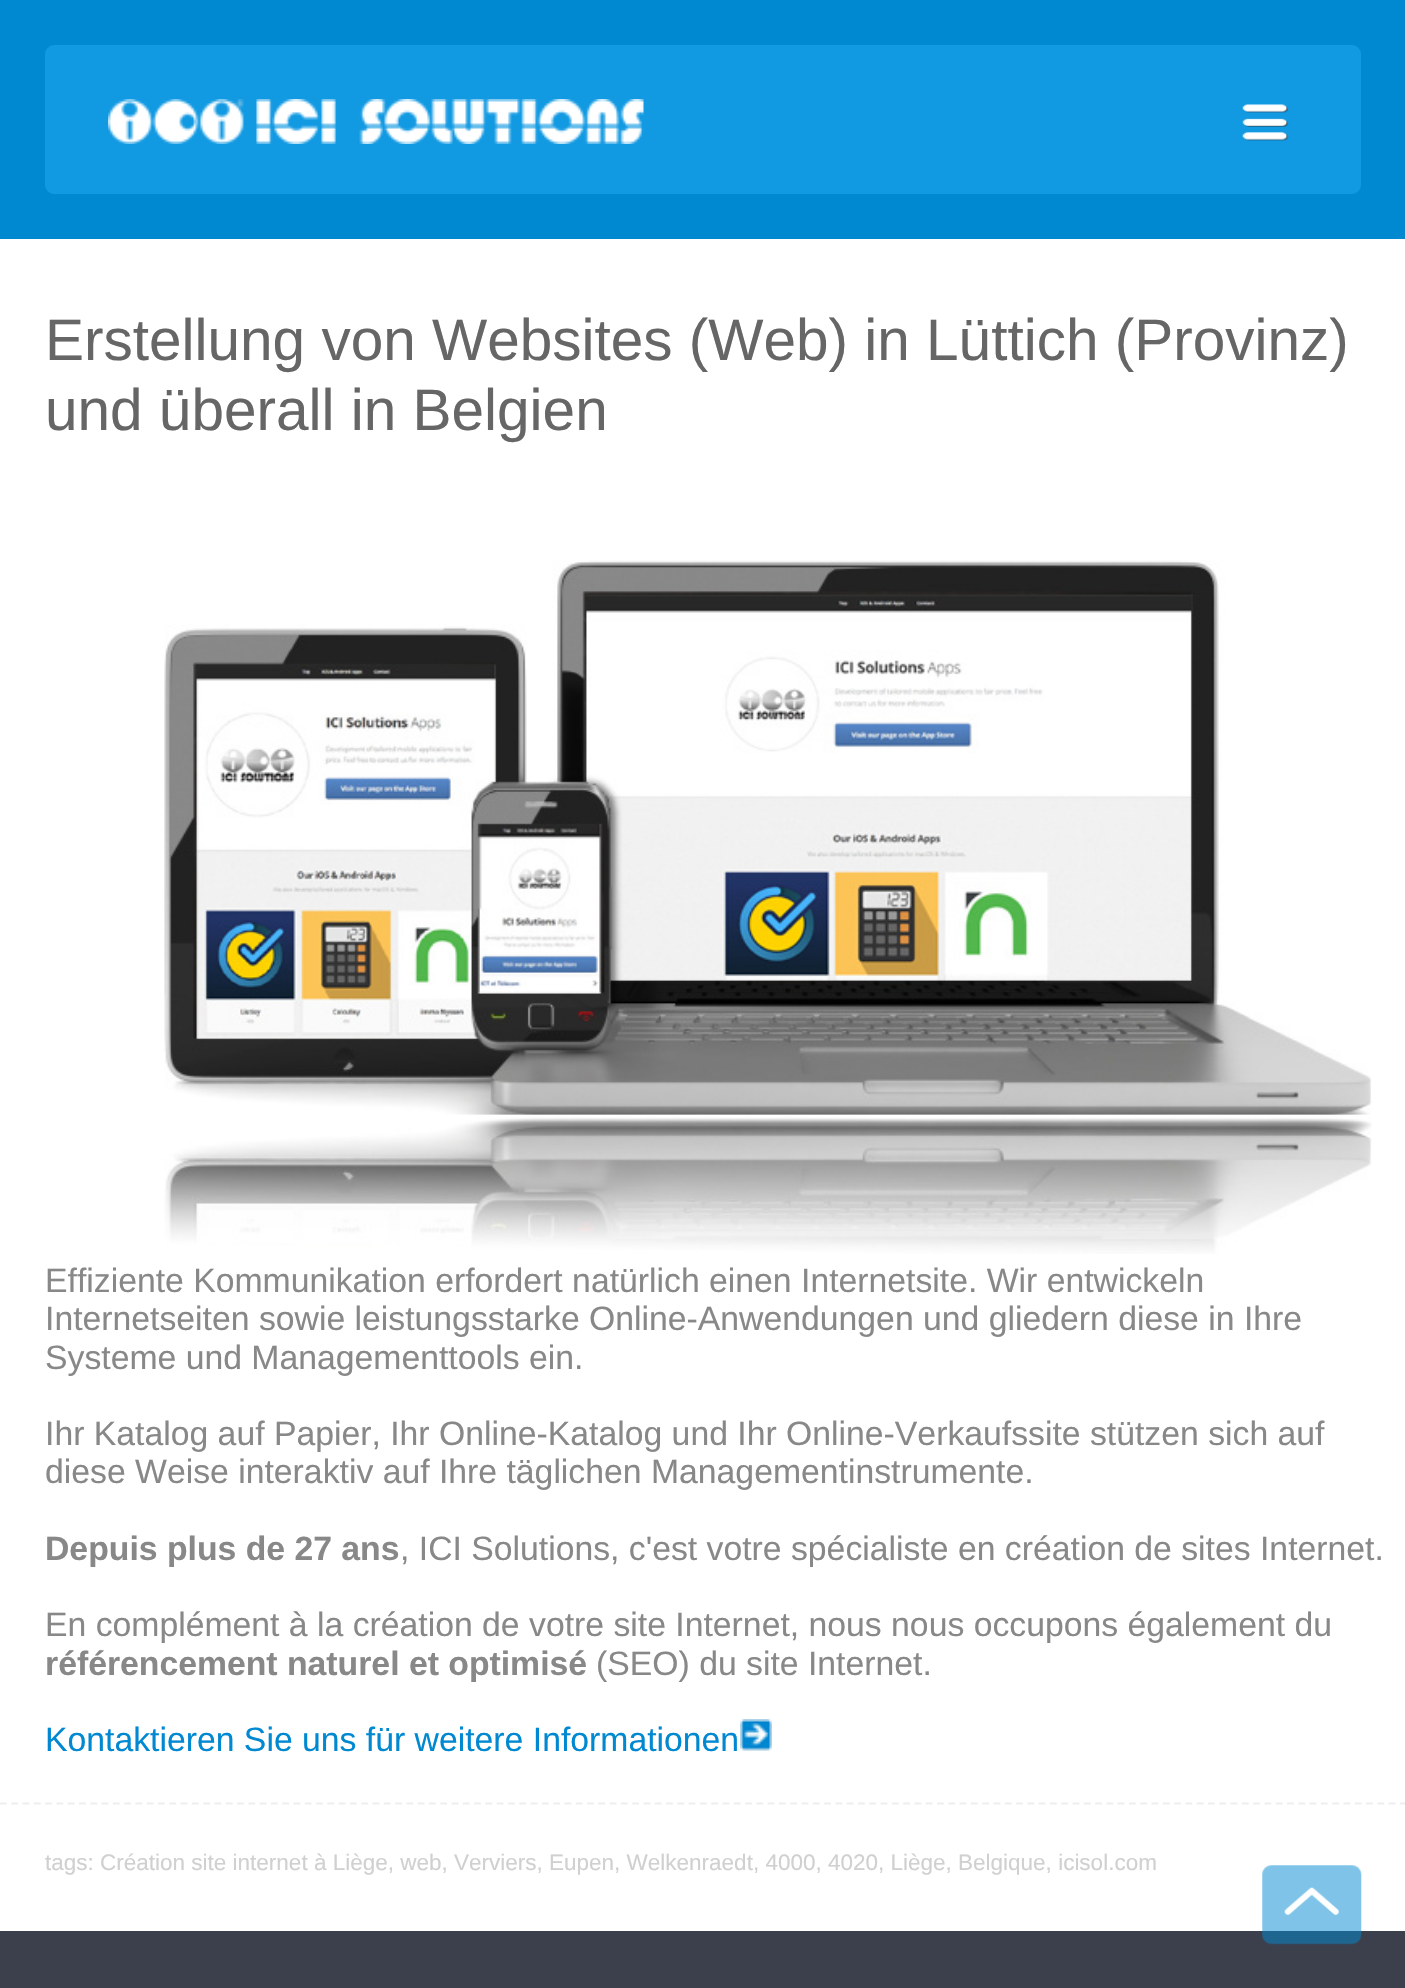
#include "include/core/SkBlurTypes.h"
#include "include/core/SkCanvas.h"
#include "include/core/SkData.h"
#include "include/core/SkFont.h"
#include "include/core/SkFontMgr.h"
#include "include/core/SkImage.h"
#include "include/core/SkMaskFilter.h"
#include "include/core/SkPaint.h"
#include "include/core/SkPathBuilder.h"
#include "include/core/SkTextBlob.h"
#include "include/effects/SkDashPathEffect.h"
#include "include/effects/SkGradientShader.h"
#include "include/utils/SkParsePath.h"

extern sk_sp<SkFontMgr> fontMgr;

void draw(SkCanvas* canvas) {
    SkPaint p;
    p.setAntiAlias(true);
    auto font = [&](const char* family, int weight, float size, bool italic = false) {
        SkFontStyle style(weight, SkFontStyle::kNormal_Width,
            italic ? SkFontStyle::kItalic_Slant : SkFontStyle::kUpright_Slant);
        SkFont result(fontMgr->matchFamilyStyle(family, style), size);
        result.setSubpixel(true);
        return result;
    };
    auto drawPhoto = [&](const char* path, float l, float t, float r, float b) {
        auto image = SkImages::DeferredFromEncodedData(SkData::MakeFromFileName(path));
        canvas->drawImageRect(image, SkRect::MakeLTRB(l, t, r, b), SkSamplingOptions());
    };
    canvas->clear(0xFFFFFFFF);
    p.setColor(0xFF0088D1);
    canvas->drawRect(SkRect::MakeLTRB(0, 0, 1405, 239), p);
    p.setColor(0xFF1199E2);
    canvas->drawRoundRect(SkRect::MakeLTRB(46, 46, 1360, 193), 8, 8, p);
    p.setStyle(SkPaint::kStroke_Style);
    p.setStrokeWidth(2);
    canvas->drawRoundRect(SkRect::MakeLTRB(46, 46, 1360, 193), 8, 8, p);
    drawPhoto("media/1.png", 108, 99, 644, 144);
    drawPhoto("media/2.png", 1242, 104, 1289, 141);
    auto font1 = font("Liberation Sans", 400, 58.5f);
    p.setStyle(SkPaint::kFill_Style);
    p.setColor(0xFF666666);
    canvas->drawString("Erstellung von Websites (Web) in Lüttich (Provinz)", 45, 360, font1, p);
    canvas->drawString("und überall in Belgien", 45, 430, font1, p);
    drawPhoto("media/3.png", 164, 560, 1372, 1254);
    auto font2 = font("Liberation Sans", 400, 33.75f);
    p.setColor(0xFF888888);
    {
        const struct { const char* s; float x, y; } items[] = {
            {"Effiziente Kommunikation erfordert natürlich einen Internetsite. Wir entwickeln", 45, 1292},
            {"Internetseiten sowie leistungsstarke Online-Anwendungen und gliedern diese in Ihre", 45, 1330},
            {"Systeme und Managementtools ein.", 45, 1369},
            {"Ihr Katalog auf Papier, Ihr Online-Katalog und Ihr Online-Verkaufssite stützen sich auf", 45, 1445},
            {"diese Weise interaktiv auf Ihre täglichen Managementinstrumente.", 45, 1483},
        };
        for (auto [s, x, y] : items) {
            canvas->drawString(s, x, y, font2, p);
        }
    }
    auto font3 = font("Liberation Sans", 700, 33.75f);
    canvas->drawString("Depuis plus de 27 ans", 45, 1560, font3, p);
    canvas->drawString(", ICI Solutions, c'est votre spécialiste en création de sites Internet.", 400, 1560, font2, p);
    canvas->drawString("En complément à la création de votre site Internet, nous nous occupons également du", 45, 1636, font2, p);
    canvas->drawString("référencement naturel et optimisé", 45, 1675, font3, p);
    canvas->drawString("(SEO) du site Internet.", 596, 1675, font2, p);
    p.setColor(0xFF0088D1);
    canvas->drawString("Kontaktieren Sie uns für weitere Informationen", 45, 1751, font2, p);
    drawPhoto("media/4.png", 740, 1719, 772, 1751);
    p.setStyle(SkPaint::kStroke_Style);
    p.setStrokeWidth(2.2f);
    p.setColor(0xFFEEEEEE);
    p.setPathEffect(SkDashPathEffect::Make({{6.75f, 4.54f}}, 0));
    canvas->drawPath(SkPathBuilder().moveTo(0, 1803.5f).lineTo(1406, 1803.5f).detach(), p);
    p.setPathEffect(nullptr);
    auto font4 = font("Liberation Sans", 400, 22.5f);
    p.setStyle(SkPaint::kFill_Style);
    p.setColor(0xFFD0D0D0);
    canvas->drawString("tags: Création site internet à Liège, web, Verviers, Eupen, Welkenraedt, 4000, 4020, Liège, Belgique, icisol.com", 45, 1870, font4, p);
    p.setColor(0xFF3C3F4C);
    canvas->drawRect(SkRect::MakeLTRB(0, 1931, 1405, 1988), p);
    drawPhoto("media/5.png", 1262, 1865, 1362, 1945);
    drawPhoto("media/6.png", 1284, 1887, 1339, 1915);
}
